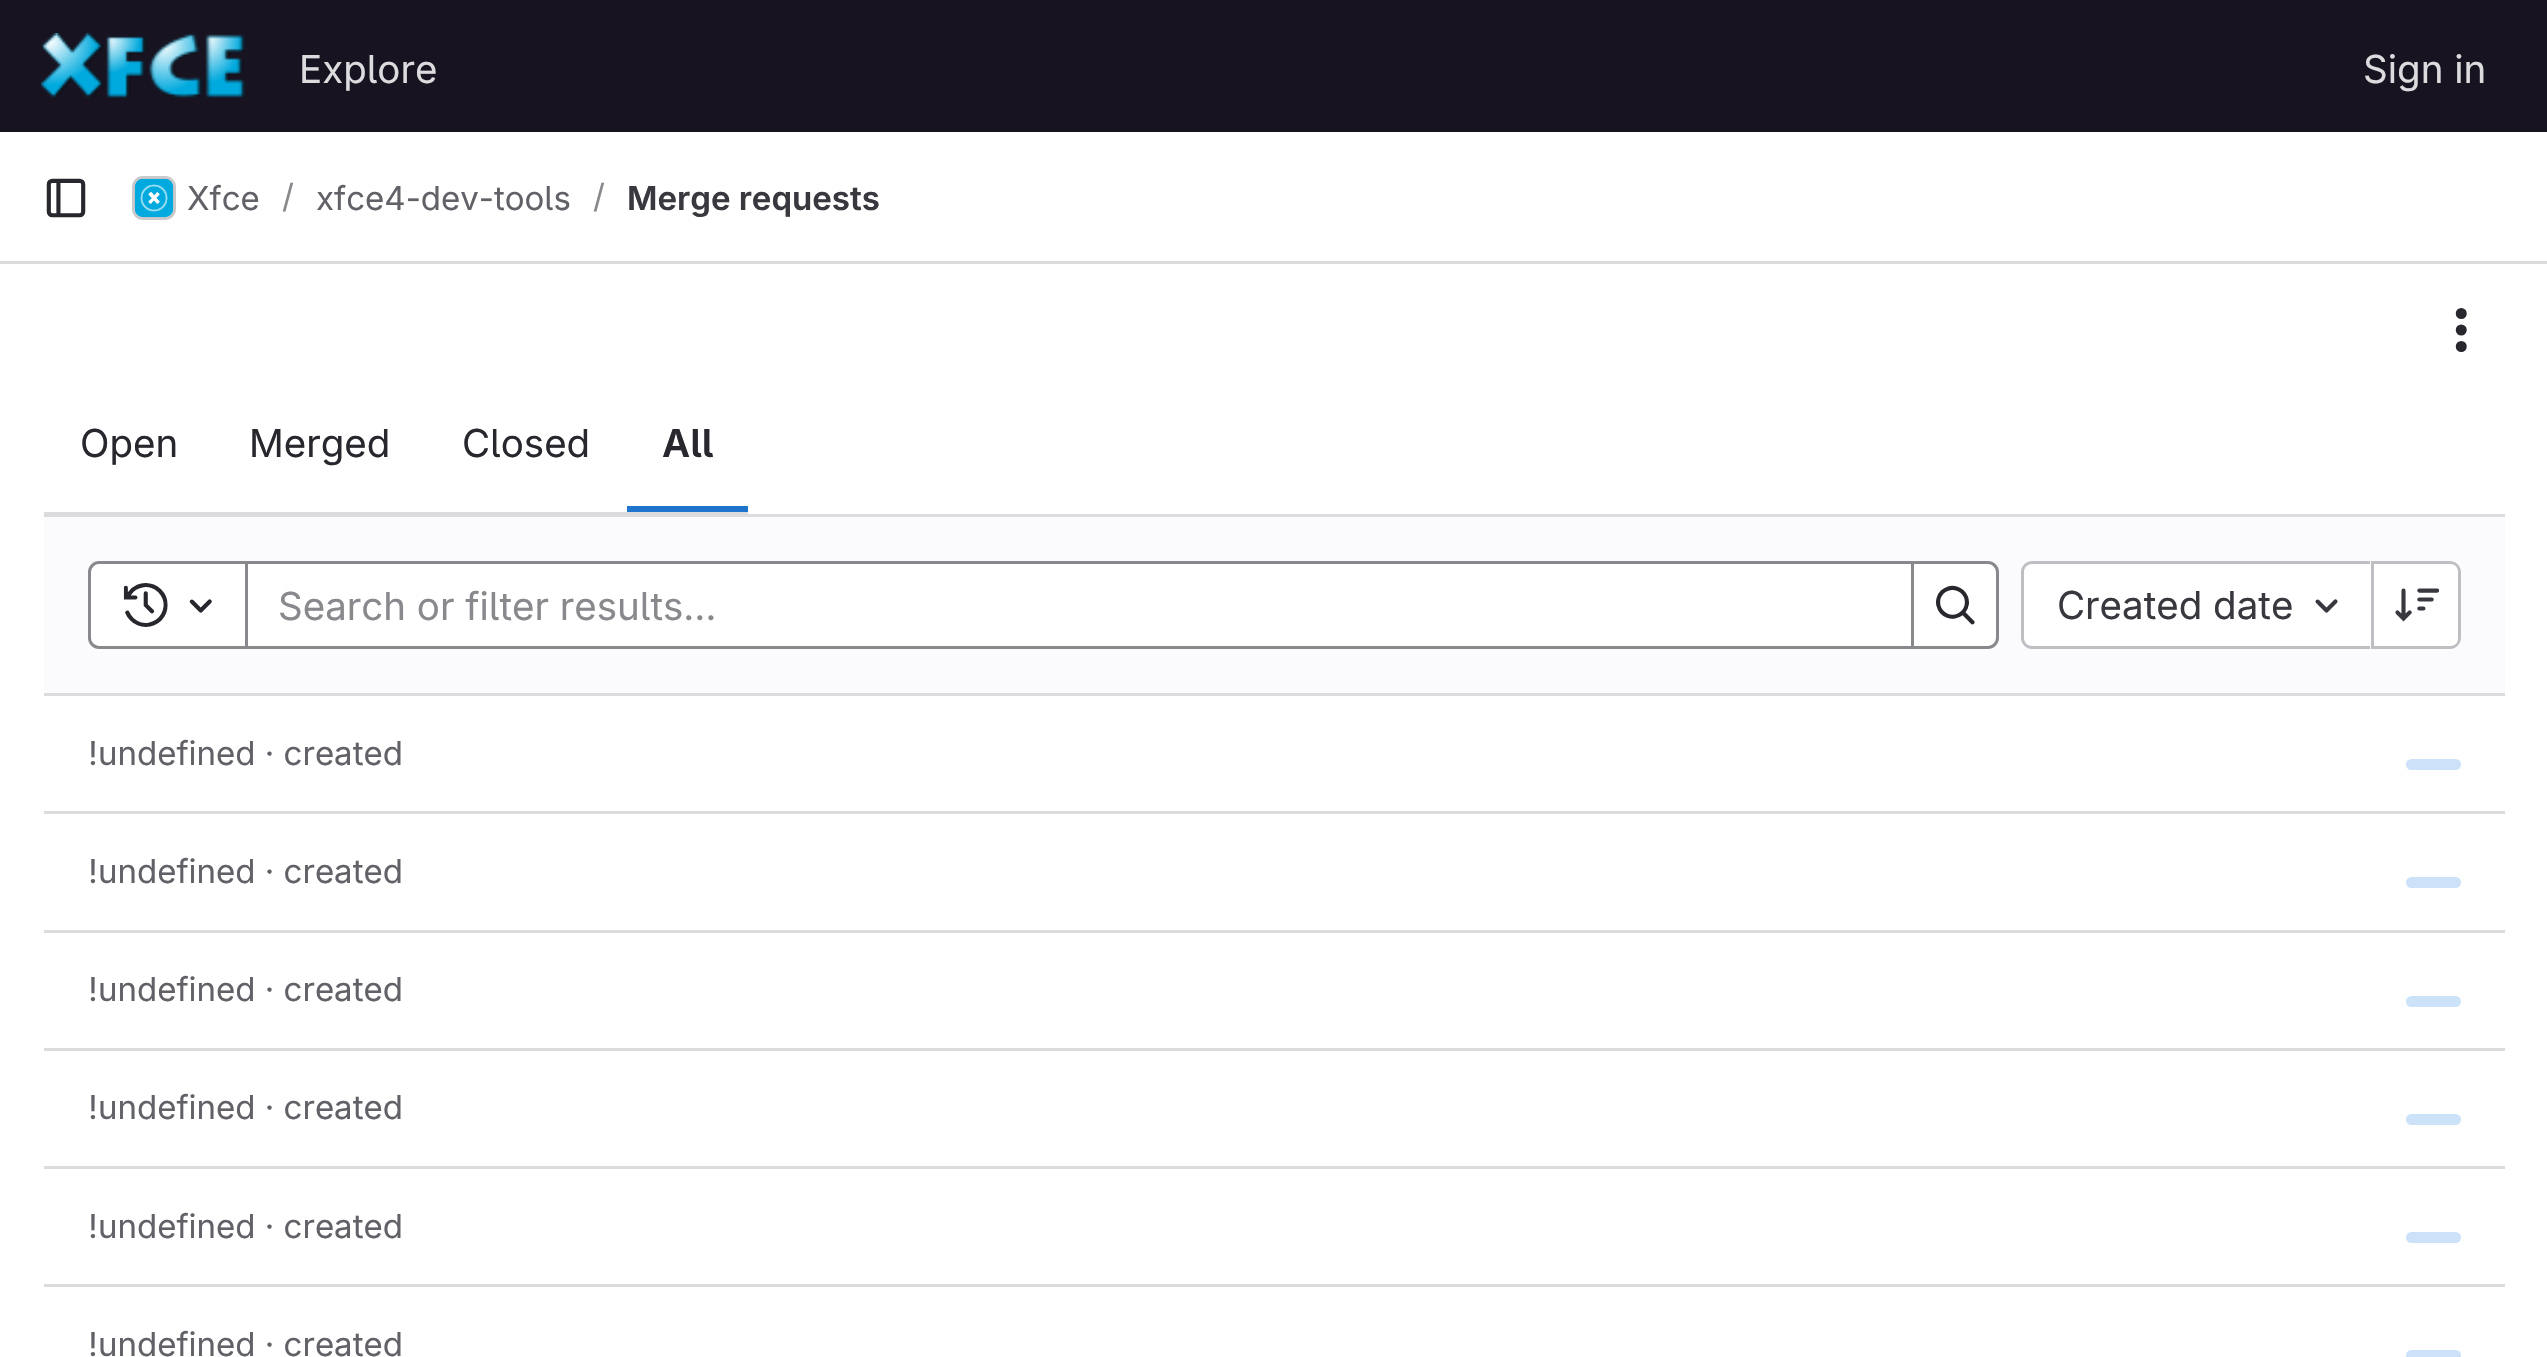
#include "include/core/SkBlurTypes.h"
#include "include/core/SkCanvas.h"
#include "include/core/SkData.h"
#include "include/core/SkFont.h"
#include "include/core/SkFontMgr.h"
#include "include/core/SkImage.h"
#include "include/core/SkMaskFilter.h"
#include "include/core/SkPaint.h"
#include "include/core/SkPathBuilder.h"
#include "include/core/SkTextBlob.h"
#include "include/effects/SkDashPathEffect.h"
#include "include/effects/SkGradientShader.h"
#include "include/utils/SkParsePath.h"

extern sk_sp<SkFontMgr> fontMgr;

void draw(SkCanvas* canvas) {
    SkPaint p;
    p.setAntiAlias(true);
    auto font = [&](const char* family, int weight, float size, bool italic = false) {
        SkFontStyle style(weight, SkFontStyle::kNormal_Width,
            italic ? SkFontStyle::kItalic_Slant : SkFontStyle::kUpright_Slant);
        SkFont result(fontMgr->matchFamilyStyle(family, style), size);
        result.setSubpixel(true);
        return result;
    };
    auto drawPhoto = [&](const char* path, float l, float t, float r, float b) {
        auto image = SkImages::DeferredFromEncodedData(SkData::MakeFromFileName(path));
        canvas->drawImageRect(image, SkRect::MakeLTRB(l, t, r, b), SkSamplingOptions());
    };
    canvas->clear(0xFFFFFFFF);
    p.setColor(0xFF171321);
    canvas->drawRect(SkRect::MakeLTRB(0, 0, 2547, 132), p);
    drawPhoto("media/1.png", 41, 33, 245, 98);
    auto font1 = font("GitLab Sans", 400, 38.5f);
    p.setColor(0xFFDCDCDE);
    canvas->drawString("Explore", 299, 83, font1, p);
    canvas->drawString("Sign in", 2363, 83, font1, p);
    canvas->drawRect(SkRect::MakeLTRB(0, 261, 2547, 264), p);
    drawPhoto("media/2.png", 46, 178, 86, 218);
    p.setStyle(SkPaint::kStroke_Style);
    p.setStrokeWidth(3);
    canvas->drawRoundRect(SkRect::MakeLTRB(133.5f, 177.5f, 174.5f, 218.5f), 9.5f, 9.5f, p);
    drawPhoto("media/3.png", 134, 178, 174, 218);
    p.setColor(0x14050506);
    canvas->drawRoundRect(SkRect::MakeLTRB(133.5f, 177.5f, 174.5f, 218.5f), 9.5f, 9.5f, p);
    auto font2 = font("GitLab Sans", 400, 33);
    p.setStyle(SkPaint::kFill_Style);
    p.setColor(0xFF626168);
    canvas->drawString("Xfce", 187, 210, font2, p);
    p.setColor(0xFF89888D);
    canvas->drawString("/", 282, 208, font2, p);
    p.setColor(0xFF626168);
    canvas->drawString("xfce4-dev-tools", 316, 210, font2, p);
    p.setColor(0xFF89888D);
    canvas->drawString("/", 593, 208, font2, p);
    auto font3 = font("GitLab Sans", 600, 33);
    p.setColor(0xFF3A383F);
    canvas->drawString("Merge requests", 627, 210, font3, p);
    p.setColor(0xFFDCDCDE);
    canvas->drawRect(SkRect::MakeLTRB(44, 514, 2505, 517), p);
    drawPhoto("media/4.png", 2455, 308, 2467, 352);
    canvas->drawRect(SkRect::MakeLTRB(44, 512, 748, 514), p);
    p.setColor(0xFF28272D);
    {
        const struct { const char* s; float x, y; } items[] = {
            {"Open", 80, 457},
            {"Merged", 249, 457},
            {"Closed", 462, 457},
        };
        for (auto [s, x, y] : items) {
            canvas->drawString(s, x, y, font1, p);
        }
    }
    auto font4 = font("GitLab Sans", 600, 38.5f);
    canvas->drawString("All", 662, 457, font4, p);
    {
        const struct { float l, t, r, b; SkColor color; } items[] = {
            {627, 506, 748, 512, 0xFF1F75CB},
            {44, 517, 2505, 693, 0xFFFBFAFD},
            {44, 693, 2505, 696, 0xFFDCDCDE},
        };
        for (auto [l, t, r, b, color] : items) {
            p.setColor(color);
            canvas->drawRect(SkRect::MakeLTRB(l, t, r, b), p);
        }
    }
    p.setColor(0xFFFFFFFF);
    canvas->drawRect(SkRect::MakeLTRB(246.5f, 562.5f, 1912.5f, 647.5f), p);
    p.setStyle(SkPaint::kStroke_Style);
    p.setColor(0xFF89888D);
    canvas->drawRect(SkRect::MakeLTRB(246.5f, 562.5f, 1912.5f, 647.5f), p);
    p.setStyle(SkPaint::kFill_Style);
    p.setColor(0xFFFFFFFF);
    canvas->drawPath(SkPathBuilder().moveTo(99, 562.5f).lineTo(246.5f, 562.5f).lineTo(246.5f, 647.5f).lineTo(99, 647.5f).cubicTo(94, 647.5f, 89.5f, 643, 89.5f, 638).lineTo(89.5f, 572).cubicTo(89.5f, 567, 94, 562.5f, 99, 562.5f).close().detach(), p);
    p.setStyle(SkPaint::kStroke_Style);
    p.setColor(0xFF89888D);
    canvas->drawPath(SkPathBuilder().moveTo(99, 562.5f).lineTo(246.5f, 562.5f).lineTo(246.5f, 647.5f).lineTo(99, 647.5f).cubicTo(94, 647.5f, 89.5f, 643, 89.5f, 638).lineTo(89.5f, 572).cubicTo(89.5f, 567, 94, 562.5f, 99, 562.5f).close().detach(), p);
    drawPhoto("media/5.png", 123, 583, 168, 627);
    drawPhoto("media/6.png", 189, 599, 212, 613);
    p.setStyle(SkPaint::kFill_Style);
    canvas->drawString("Search or filter results…", 278, 620, font1, p);
    p.setColor(0xFFFFFFFF);
    canvas->drawPath(SkPathBuilder().moveTo(1912.5f, 562.5f).lineTo(1988, 562.5f).cubicTo(1993, 562.5f, 1997.5f, 567, 1997.5f, 572).lineTo(1997.5f, 638).cubicTo(1997.5f, 643, 1993, 647.5f, 1988, 647.5f).lineTo(1912.5f, 647.5f).close().detach(), p);
    p.setStyle(SkPaint::kStroke_Style);
    p.setColor(0xFF89888D);
    canvas->drawPath(SkPathBuilder().moveTo(1912.5f, 562.5f).lineTo(1988, 562.5f).cubicTo(1993, 562.5f, 1997.5f, 567, 1997.5f, 572).lineTo(1997.5f, 638).cubicTo(1997.5f, 643, 1993, 647.5f, 1988, 647.5f).lineTo(1912.5f, 647.5f).close().detach(), p);
    drawPhoto("media/7.png", 1936, 585, 1975, 625);
    p.setStyle(SkPaint::kFill_Style);
    p.setColor(0xFFFFFFFF);
    canvas->drawPath(SkPathBuilder().moveTo(2032, 564).lineTo(2371, 564).lineTo(2371, 646).lineTo(2032, 646).cubicTo(2027.5f, 646, 2024, 642.5f, 2024, 638).lineTo(2024, 572).cubicTo(2024, 567.5f, 2027.5f, 564, 2032, 564).close().detach(), p);
    p.setColor(0xFFBFBFC3);
    canvas->drawPath(SkPathBuilder(SkPathFillType::kEvenOdd).moveTo(2032, 561).lineTo(2370, 561).lineTo(2370, 649).lineTo(2032, 649).cubicTo(2026, 649, 2021, 644, 2021, 638).lineTo(2021, 572).cubicTo(2021, 566, 2026, 561, 2032, 561).close().moveTo(2032, 564).lineTo(2370, 564).lineTo(2370, 646).lineTo(2032, 646).cubicTo(2028, 646, 2024, 643, 2024, 638).lineTo(2024, 572).cubicTo(2024, 567, 2028, 564, 2032, 564).close().detach(), p);
    p.setColor(0xFF3A383F);
    canvas->drawString("Created date", 2057, 619, font1, p);
    drawPhoto("media/8.png", 2315, 599, 2338, 613);
    p.setColor(0xFFFFFFFF);
    canvas->drawPath(SkPathBuilder().moveTo(2373, 564).lineTo(2451, 564).cubicTo(2455.5f, 564, 2459, 567.5f, 2459, 572).lineTo(2459, 638).cubicTo(2459, 642.5f, 2455.5f, 646, 2451, 646).lineTo(2373, 646).close().detach(), p);
    p.setColor(0xFFBFBFC3);
    canvas->drawPath(SkPathBuilder(SkPathFillType::kEvenOdd).moveTo(2373, 561).lineTo(2450, 561).cubicTo(2456, 561, 2461, 566, 2461, 572).lineTo(2461, 638).cubicTo(2461, 644, 2456, 649, 2450, 649).lineTo(2373, 649).close().moveTo(2373, 564).lineTo(2450, 564).cubicTo(2455, 564, 2458, 567, 2458, 572).lineTo(2458, 638).cubicTo(2458, 643, 2455, 646, 2450, 646).lineTo(2373, 646).close().detach(), p);
    canvas->drawRect(SkRect::MakeLTRB(2371, 561, 2374, 649), p);
    drawPhoto("media/9.png", 2395, 588, 2440, 622);
    p.setColor(0xFFDCDCDE);
    canvas->drawRect(SkRect::MakeLTRB(44, 811, 2505, 814), p);
    p.setColor(0xFF626168);
    canvas->drawString("!undefined · created", 88, 765, font2, p);
    p.setColor(0xFFCBE2F9);
    canvas->drawRoundRect(SkRect::MakeLTRB(2406, 759, 2461, 770), 5.5f, 5.5f, p);
    p.setColor(0xFFDCDCDE);
    canvas->drawRect(SkRect::MakeLTRB(44, 930, 2505, 933), p);
    p.setColor(0xFF626168);
    canvas->drawString("!undefined · created", 88, 883, font2, p);
    p.setColor(0xFFCBE2F9);
    canvas->drawRoundRect(SkRect::MakeLTRB(2406, 877, 2461, 888), 5.5f, 5.5f, p);
    p.setColor(0xFFDCDCDE);
    canvas->drawRect(SkRect::MakeLTRB(44, 1048, 2505, 1051), p);
    p.setColor(0xFF626168);
    canvas->drawString("!undefined · created", 88, 1001, font2, p);
    p.setColor(0xFFCBE2F9);
    canvas->drawRoundRect(SkRect::MakeLTRB(2406, 996, 2461, 1007), 5.5f, 5.5f, p);
    p.setColor(0xFFDCDCDE);
    canvas->drawRect(SkRect::MakeLTRB(44, 1166, 2505, 1169), p);
    p.setColor(0xFF626168);
    canvas->drawString("!undefined · created", 88, 1119, font2, p);
    p.setColor(0xFFCBE2F9);
    canvas->drawRoundRect(SkRect::MakeLTRB(2406, 1114, 2461, 1125), 5.5f, 5.5f, p);
    p.setColor(0xFFDCDCDE);
    canvas->drawRect(SkRect::MakeLTRB(44, 1284, 2505, 1287), p);
    p.setColor(0xFF626168);
    canvas->drawString("!undefined · created", 88, 1238, font2, p);
    p.setColor(0xFFCBE2F9);
    canvas->drawRoundRect(SkRect::MakeLTRB(2406, 1232, 2461, 1243), 5.5f, 5.5f, p);
    p.setColor(0xFF626168);
    canvas->drawString("!undefined · created", 88, 1356, font2, p);
    p.setColor(0xFFCBE2F9);
    canvas->drawRoundRect(SkRect::MakeLTRB(2406, 1350, 2461, 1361), 5.5f, 5.5f, p);
}
